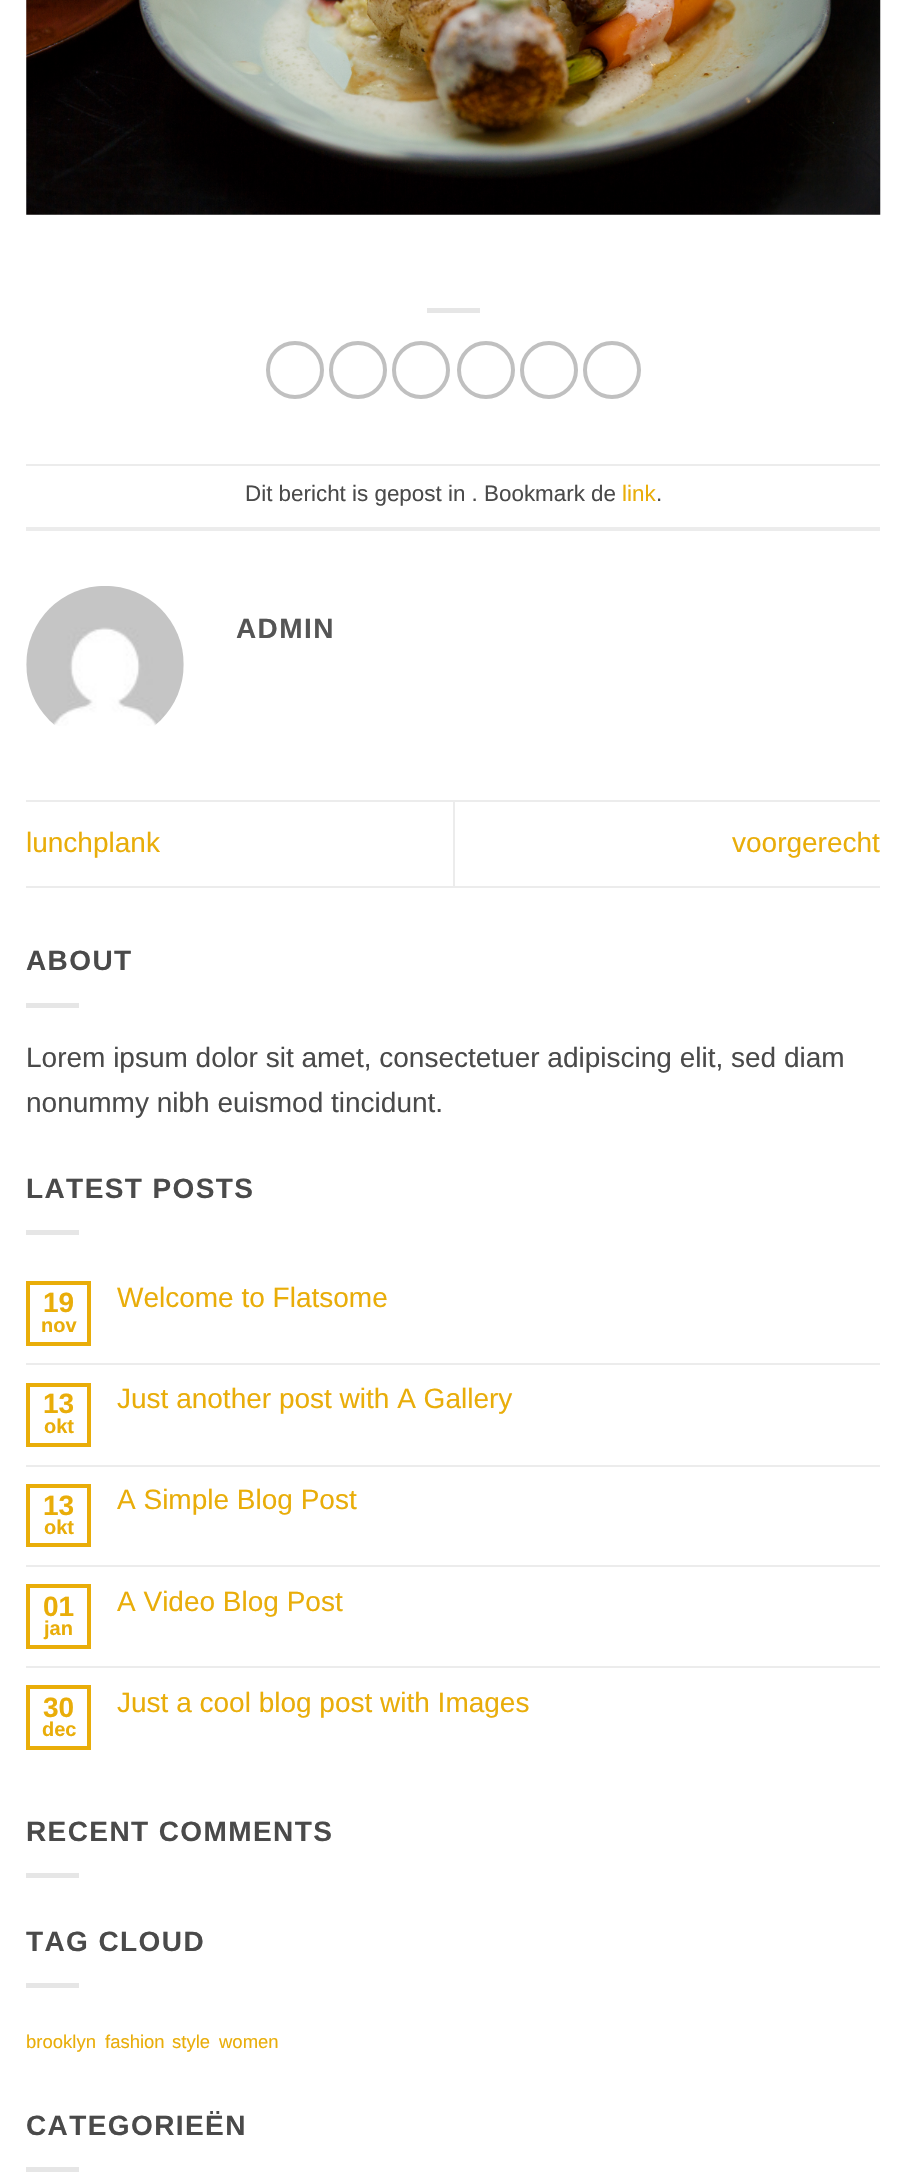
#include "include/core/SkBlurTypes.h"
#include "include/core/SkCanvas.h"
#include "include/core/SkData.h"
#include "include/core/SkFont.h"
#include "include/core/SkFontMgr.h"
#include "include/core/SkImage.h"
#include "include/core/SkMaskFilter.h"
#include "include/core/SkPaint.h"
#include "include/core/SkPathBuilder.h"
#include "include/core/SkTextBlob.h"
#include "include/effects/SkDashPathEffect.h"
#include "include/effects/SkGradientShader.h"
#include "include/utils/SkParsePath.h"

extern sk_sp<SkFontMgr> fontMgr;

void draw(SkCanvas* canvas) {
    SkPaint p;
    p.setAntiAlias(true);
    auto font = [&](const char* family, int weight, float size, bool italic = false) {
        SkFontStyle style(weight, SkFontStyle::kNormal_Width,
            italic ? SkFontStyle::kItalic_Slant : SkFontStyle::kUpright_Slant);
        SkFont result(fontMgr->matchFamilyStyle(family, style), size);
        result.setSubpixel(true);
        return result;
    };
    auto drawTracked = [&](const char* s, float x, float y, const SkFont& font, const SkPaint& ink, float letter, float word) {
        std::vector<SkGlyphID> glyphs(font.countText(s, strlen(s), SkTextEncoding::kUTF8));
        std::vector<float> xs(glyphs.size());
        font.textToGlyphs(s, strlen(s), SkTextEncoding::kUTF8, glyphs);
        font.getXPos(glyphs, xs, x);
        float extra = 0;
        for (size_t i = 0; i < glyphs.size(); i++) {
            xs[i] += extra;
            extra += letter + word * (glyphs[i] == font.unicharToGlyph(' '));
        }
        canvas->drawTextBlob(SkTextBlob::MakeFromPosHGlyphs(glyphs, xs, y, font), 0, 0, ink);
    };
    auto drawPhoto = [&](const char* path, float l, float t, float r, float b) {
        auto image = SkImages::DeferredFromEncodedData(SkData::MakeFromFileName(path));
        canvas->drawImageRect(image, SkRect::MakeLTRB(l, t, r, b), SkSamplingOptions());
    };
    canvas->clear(0xFFFFFFFF);
    drawPhoto("media/1.png", 26, 0, 881, 215);
    p.setColor(0xFFE6E6E6);
    canvas->drawRect(SkRect::MakeLTRB(427, 308, 480, 313), p);
    p.setStyle(SkPaint::kStroke_Style);
    p.setStrokeWidth(4);
    p.setColor(0xFFC0C0C0);
    canvas->drawCircle(295, 370, 27, p);
    canvas->drawCircle(358, 370, 27, p);
    canvas->drawCircle(421, 370, 27, p);
    canvas->drawCircle(486, 370, 27, p);
    canvas->drawCircle(549, 370, 27, p);
    canvas->drawCircle(612, 370, 27, p);
    p.setStyle(SkPaint::kFill_Style);
    p.setColor(0xFFECECEC);
    canvas->drawRect(SkRect::MakeLTRB(26, 464, 880, 466), p);
    canvas->drawRect(SkRect::MakeLTRB(26, 527, 880, 531), p);
    auto font1 = font("Liberation Sans", 400, 22.4f);
    p.setColor(0xFF4A4A4A);
    canvas->drawString("Dit bericht is gepost in . Bookmark de", 245, 501, font1, p);
    p.setColor(0xFFE9AD09);
    canvas->drawString("link", 622, 501, font1, p);
    p.setColor(0xFF4A4A4A);
    canvas->drawString(".", 656, 501, font1, p);
    drawPhoto("media/2.png", 26, 586, 184, 726);
    auto font2 = font("Liberation Sans", 700, 28);
    p.setColor(0xFF555555);
    drawTracked("ADMIN", 236, 638, font2, p, 1.4f, 0);
    p.setColor(0xFFECECEC);
    canvas->drawRect(SkRect::MakeLTRB(26, 800, 880, 802), p);
    canvas->drawRect(SkRect::MakeLTRB(26, 886, 880, 888), p);
    auto font3 = font("Liberation Sans", 400, 28);
    p.setColor(0xFFE9AD09);
    canvas->drawString("lunchplank", 26, 852, font3, p);
    p.setColor(0xFFECECEC);
    canvas->drawRect(SkRect::MakeLTRB(453, 802, 455, 886), p);
    p.setColor(0xFFE9AD09);
    canvas->drawString("voorgerecht", 732, 852, font3, p);
    p.setColor(0xFF4A4A4A);
    drawTracked("ABOUT", 26, 970, font2, p, 1.4f, 0);
    p.setColor(0xFFE6E6E6);
    canvas->drawRect(SkRect::MakeLTRB(26, 1003, 79, 1008), p);
    p.setColor(0xFF4A4A4A);
    canvas->drawString("Lorem ipsum dolor sit amet, consectetuer adipiscing elit, sed diam", 26, 1067, font3, p);
    canvas->drawString("nonummy nibh euismod tincidunt.", 26, 1112, font3, p);
    drawTracked("LATEST POSTS", 26, 1198, font2, p, 1.4f, 0);
    p.setColor(0xFFE6E6E6);
    canvas->drawRect(SkRect::MakeLTRB(26, 1230, 79, 1235), p);
    p.setStyle(SkPaint::kStroke_Style);
    p.setColor(0xFFE9AD09);
    canvas->drawRect(SkRect::MakeLTRB(28, 1283, 89, 1344), p);
    p.setStyle(SkPaint::kFill_Style);
    canvas->drawString("19", 43, 1312, font2, p);
    auto font4 = font("Liberation Sans", 700, 20);
    canvas->drawString("nov", 41, 1332, font4, p);
    canvas->drawString("Welcome to Flatsome", 117, 1307, font3, p);
    p.setColor(0xFFECECEC);
    canvas->drawRect(SkRect::MakeLTRB(26, 1363, 880, 1365), p);
    p.setStyle(SkPaint::kStroke_Style);
    p.setColor(0xFFE9AD09);
    canvas->drawRect(SkRect::MakeLTRB(28, 1385, 89, 1445), p);
    p.setStyle(SkPaint::kFill_Style);
    canvas->drawString("13", 43, 1413, font2, p);
    canvas->drawString("okt", 44, 1433, font4, p);
    canvas->drawString("Just another post with A Gallery", 117, 1408, font3, p);
    p.setColor(0xFFECECEC);
    canvas->drawRect(SkRect::MakeLTRB(26, 1465, 880, 1467), p);
    p.setStyle(SkPaint::kStroke_Style);
    p.setColor(0xFFE9AD09);
    canvas->drawRect(SkRect::MakeLTRB(28, 1486, 89, 1545), p);
    p.setStyle(SkPaint::kFill_Style);
    canvas->drawString("13", 43, 1515, font2, p);
    canvas->drawString("okt", 44, 1534, font4, p);
    canvas->drawString("A Simple Blog Post", 117, 1509, font3, p);
    p.setColor(0xFFECECEC);
    canvas->drawRect(SkRect::MakeLTRB(26, 1565, 880, 1567), p);
    p.setStyle(SkPaint::kStroke_Style);
    p.setColor(0xFFE9AD09);
    canvas->drawRect(SkRect::MakeLTRB(28, 1586, 89, 1647), p);
    p.setStyle(SkPaint::kFill_Style);
    canvas->drawString("01", 43, 1616, font2, p);
    canvas->drawString("jan", 44, 1635, font4, p);
    canvas->drawString("A Video Blog Post", 117, 1611, font3, p);
    p.setColor(0xFFECECEC);
    canvas->drawRect(SkRect::MakeLTRB(26, 1666, 880, 1668), p);
    p.setStyle(SkPaint::kStroke_Style);
    p.setColor(0xFFE9AD09);
    canvas->drawRect(SkRect::MakeLTRB(28, 1687, 89, 1748), p);
    p.setStyle(SkPaint::kFill_Style);
    canvas->drawString("30", 43, 1717, font2, p);
    canvas->drawString("dec", 42, 1736, font4, p);
    canvas->drawString("Just a cool blog post with Images", 117, 1712, font3, p);
    p.setColor(0xFF4A4A4A);
    drawTracked("RECENT COMMENTS", 26, 1841, font2, p, 1.4f, 0);
    p.setColor(0xFFE6E6E6);
    canvas->drawRect(SkRect::MakeLTRB(26, 1873, 79, 1878), p);
    p.setColor(0xFF4A4A4A);
    drawTracked("TAG CLOUD", 26, 1951, font2, p, 1.4f, 0);
    p.setColor(0xFFE6E6E6);
    canvas->drawRect(SkRect::MakeLTRB(26, 1983, 79, 1988), p);
    auto font5 = font("Liberation Sans", 400, 18.5f);
    p.setColor(0xFFE9AD09);
    {
        const struct { const char* s; float x, y; } items[] = {
            {"brooklyn", 26, 2048},
            {"fashion", 105, 2048},
            {"style", 172, 2048},
            {"women", 219, 2048},
        };
        for (auto [s, x, y] : items) {
            canvas->drawString(s, x, y, font5, p);
        }
    }
    p.setColor(0xFF4A4A4A);
    drawTracked("CATEGORIEËN", 26, 2135, font2, p, 1.4f, 0);
    p.setColor(0xFFE6E6E6);
    canvas->drawRect(SkRect::MakeLTRB(26, 2167, 79, 2172), p);
}
